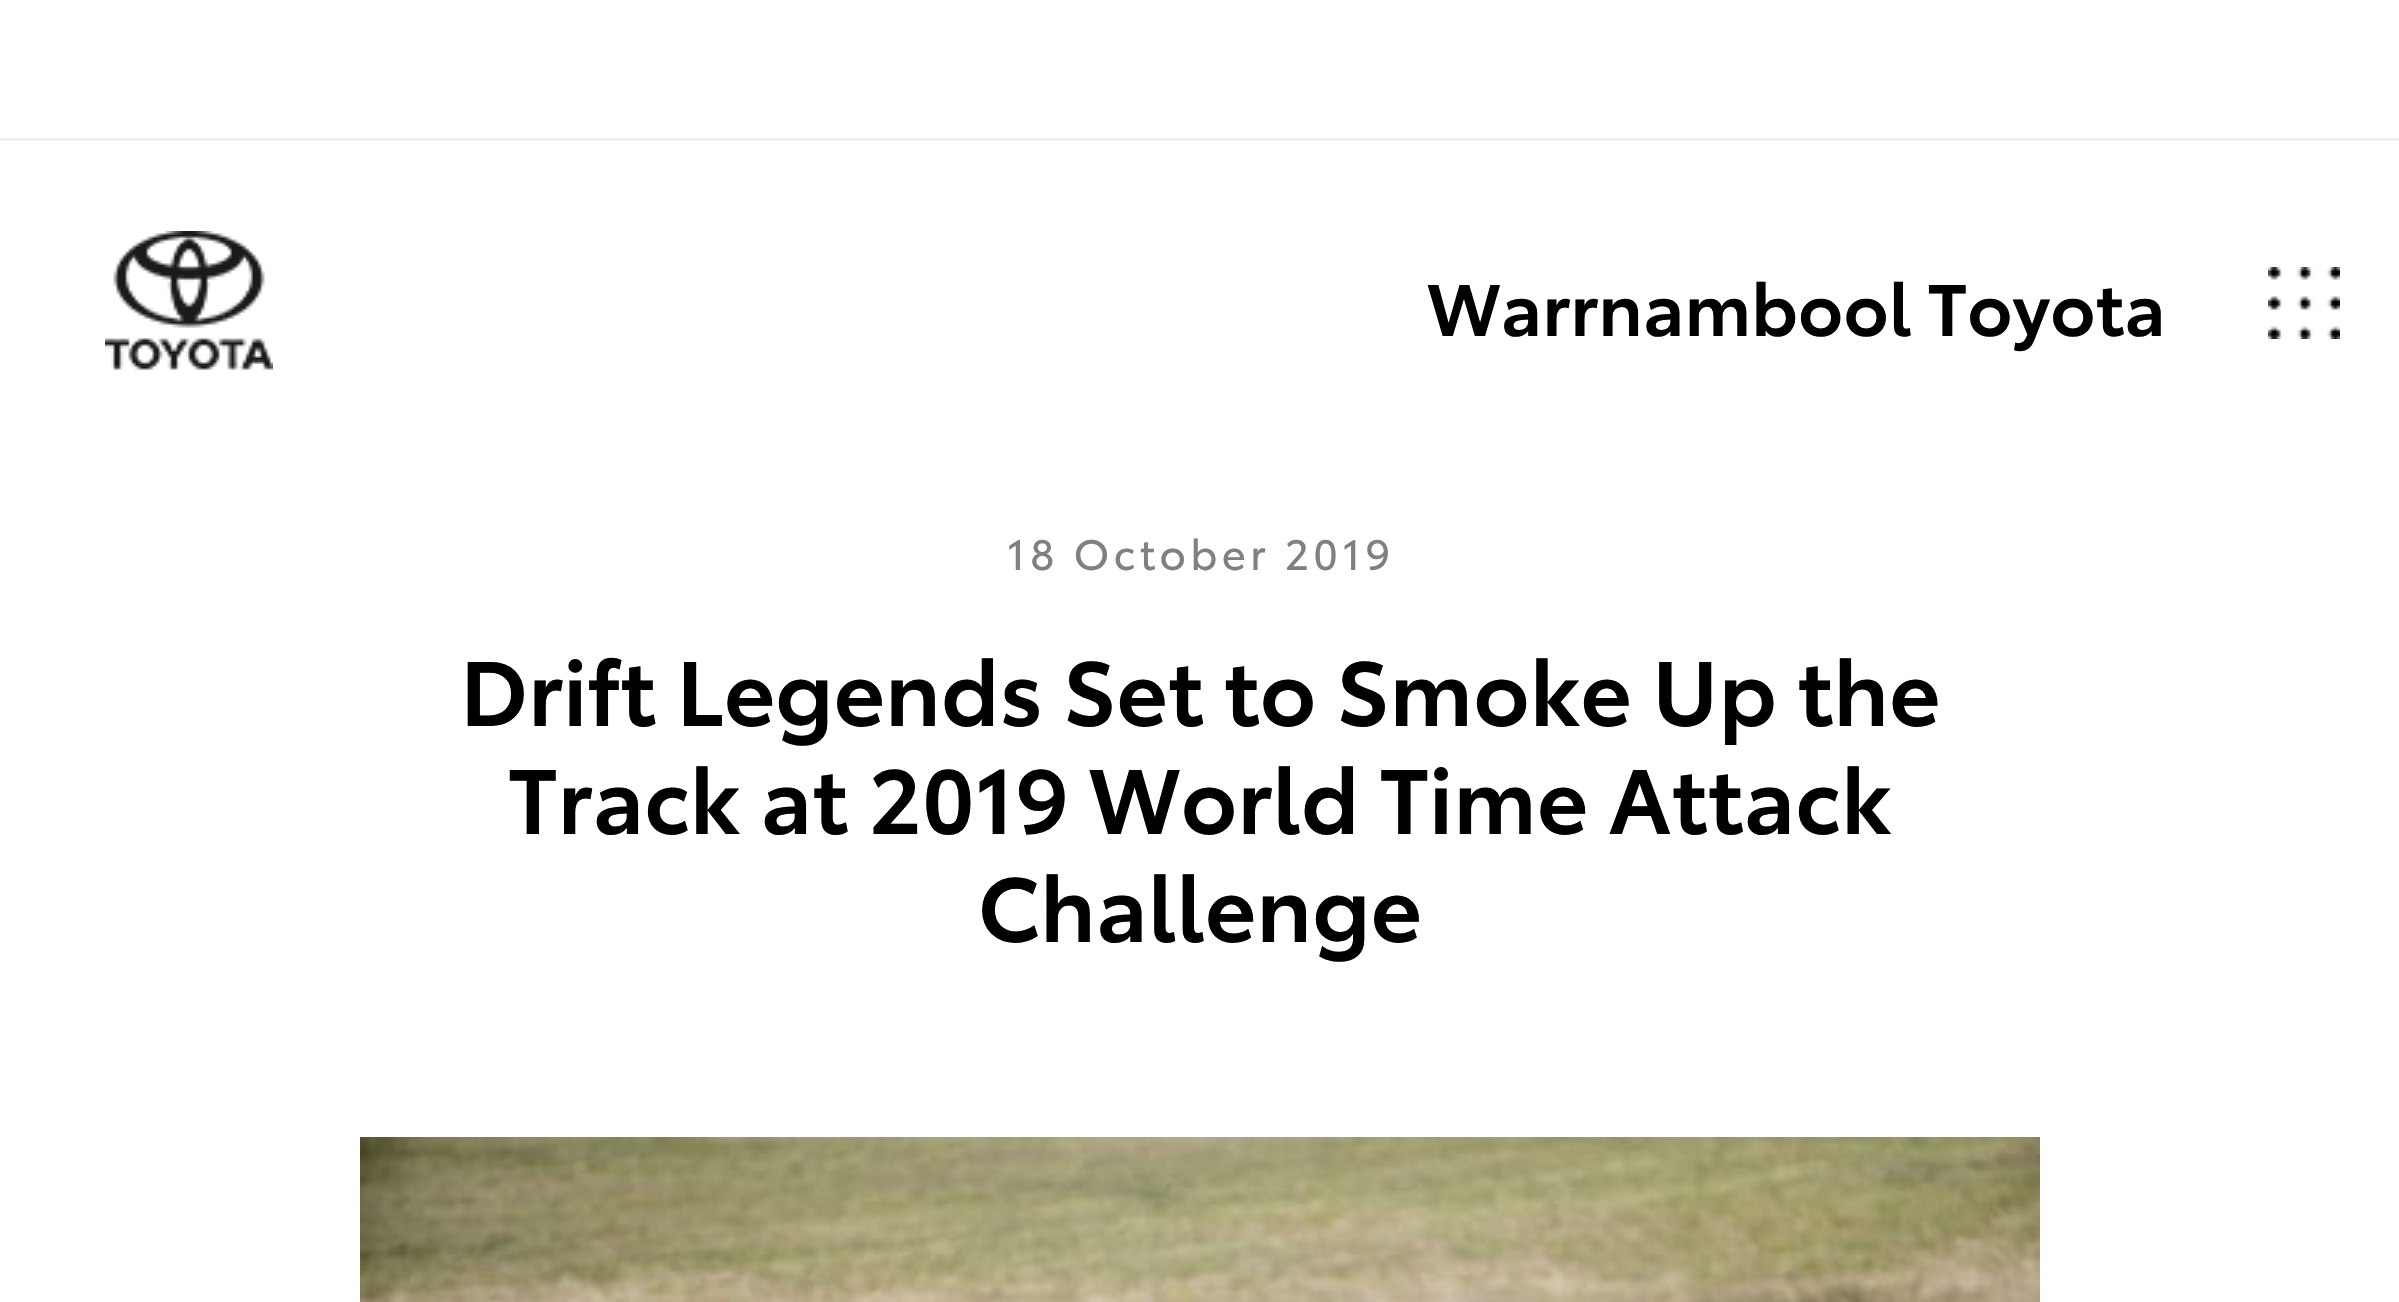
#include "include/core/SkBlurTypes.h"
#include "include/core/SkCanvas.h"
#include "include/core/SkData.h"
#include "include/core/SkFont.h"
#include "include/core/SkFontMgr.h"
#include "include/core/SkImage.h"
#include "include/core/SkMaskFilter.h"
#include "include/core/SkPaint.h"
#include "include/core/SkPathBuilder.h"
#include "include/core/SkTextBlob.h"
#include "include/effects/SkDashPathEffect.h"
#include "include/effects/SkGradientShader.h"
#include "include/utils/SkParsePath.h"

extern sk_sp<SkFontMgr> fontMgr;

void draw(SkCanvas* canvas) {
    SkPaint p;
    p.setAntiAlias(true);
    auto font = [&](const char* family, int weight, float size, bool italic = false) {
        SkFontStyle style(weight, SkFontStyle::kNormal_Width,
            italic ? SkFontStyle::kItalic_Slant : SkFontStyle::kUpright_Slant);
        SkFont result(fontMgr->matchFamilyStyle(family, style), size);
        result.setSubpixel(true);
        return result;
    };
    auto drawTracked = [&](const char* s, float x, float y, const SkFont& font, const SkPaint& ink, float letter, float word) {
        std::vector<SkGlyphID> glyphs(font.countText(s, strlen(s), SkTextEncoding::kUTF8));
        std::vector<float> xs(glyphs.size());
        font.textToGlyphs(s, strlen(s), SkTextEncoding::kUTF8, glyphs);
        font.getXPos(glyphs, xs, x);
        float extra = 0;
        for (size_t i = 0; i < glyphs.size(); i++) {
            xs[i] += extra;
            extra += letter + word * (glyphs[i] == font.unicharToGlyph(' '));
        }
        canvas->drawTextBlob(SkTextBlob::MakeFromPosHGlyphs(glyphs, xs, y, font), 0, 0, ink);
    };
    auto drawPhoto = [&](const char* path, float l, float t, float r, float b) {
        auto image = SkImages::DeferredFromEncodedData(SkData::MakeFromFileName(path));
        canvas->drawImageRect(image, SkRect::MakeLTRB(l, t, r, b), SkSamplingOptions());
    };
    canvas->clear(0xFFFFFFFF);
    p.setColor(0xFFEEEEEE);
    canvas->drawRect(SkRect::MakeLTRB(0, 138, 2399, 141), p);
    drawPhoto("media/1.png", 105, 231, 273, 370);
    auto font1 = font("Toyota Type", 600, 72);
    p.setColor(0xFF000000);
    canvas->drawString("Warrnambool Toyota", 1427, 336, font1, p);
    drawPhoto("media/2.png", 2268, 267, 2340, 339);
    auto font2 = font("Toyota Type", 400, 42);
    p.setColor(0xFF808080);
    drawTracked("18 October 2019", 1007, 570, font2, p, 4.25f, 0);
    auto font3 = font("Toyota Type", 600, 90);
    p.setColor(0xFF000000);
    {
        const struct { const char* s; float x, y; } items[] = {
            {"Drift Legends Set to Smoke Up the", 460, 726},
            {"Track at 2019 World Time Attack", 508, 834},
            {"Challenge", 978, 942},
        };
        for (auto [s, x, y] : items) {
            canvas->drawString(s, x, y, font3, p);
        }
    }
    drawPhoto("media/3.png", 360, 1137, 2040, 1302);
}
